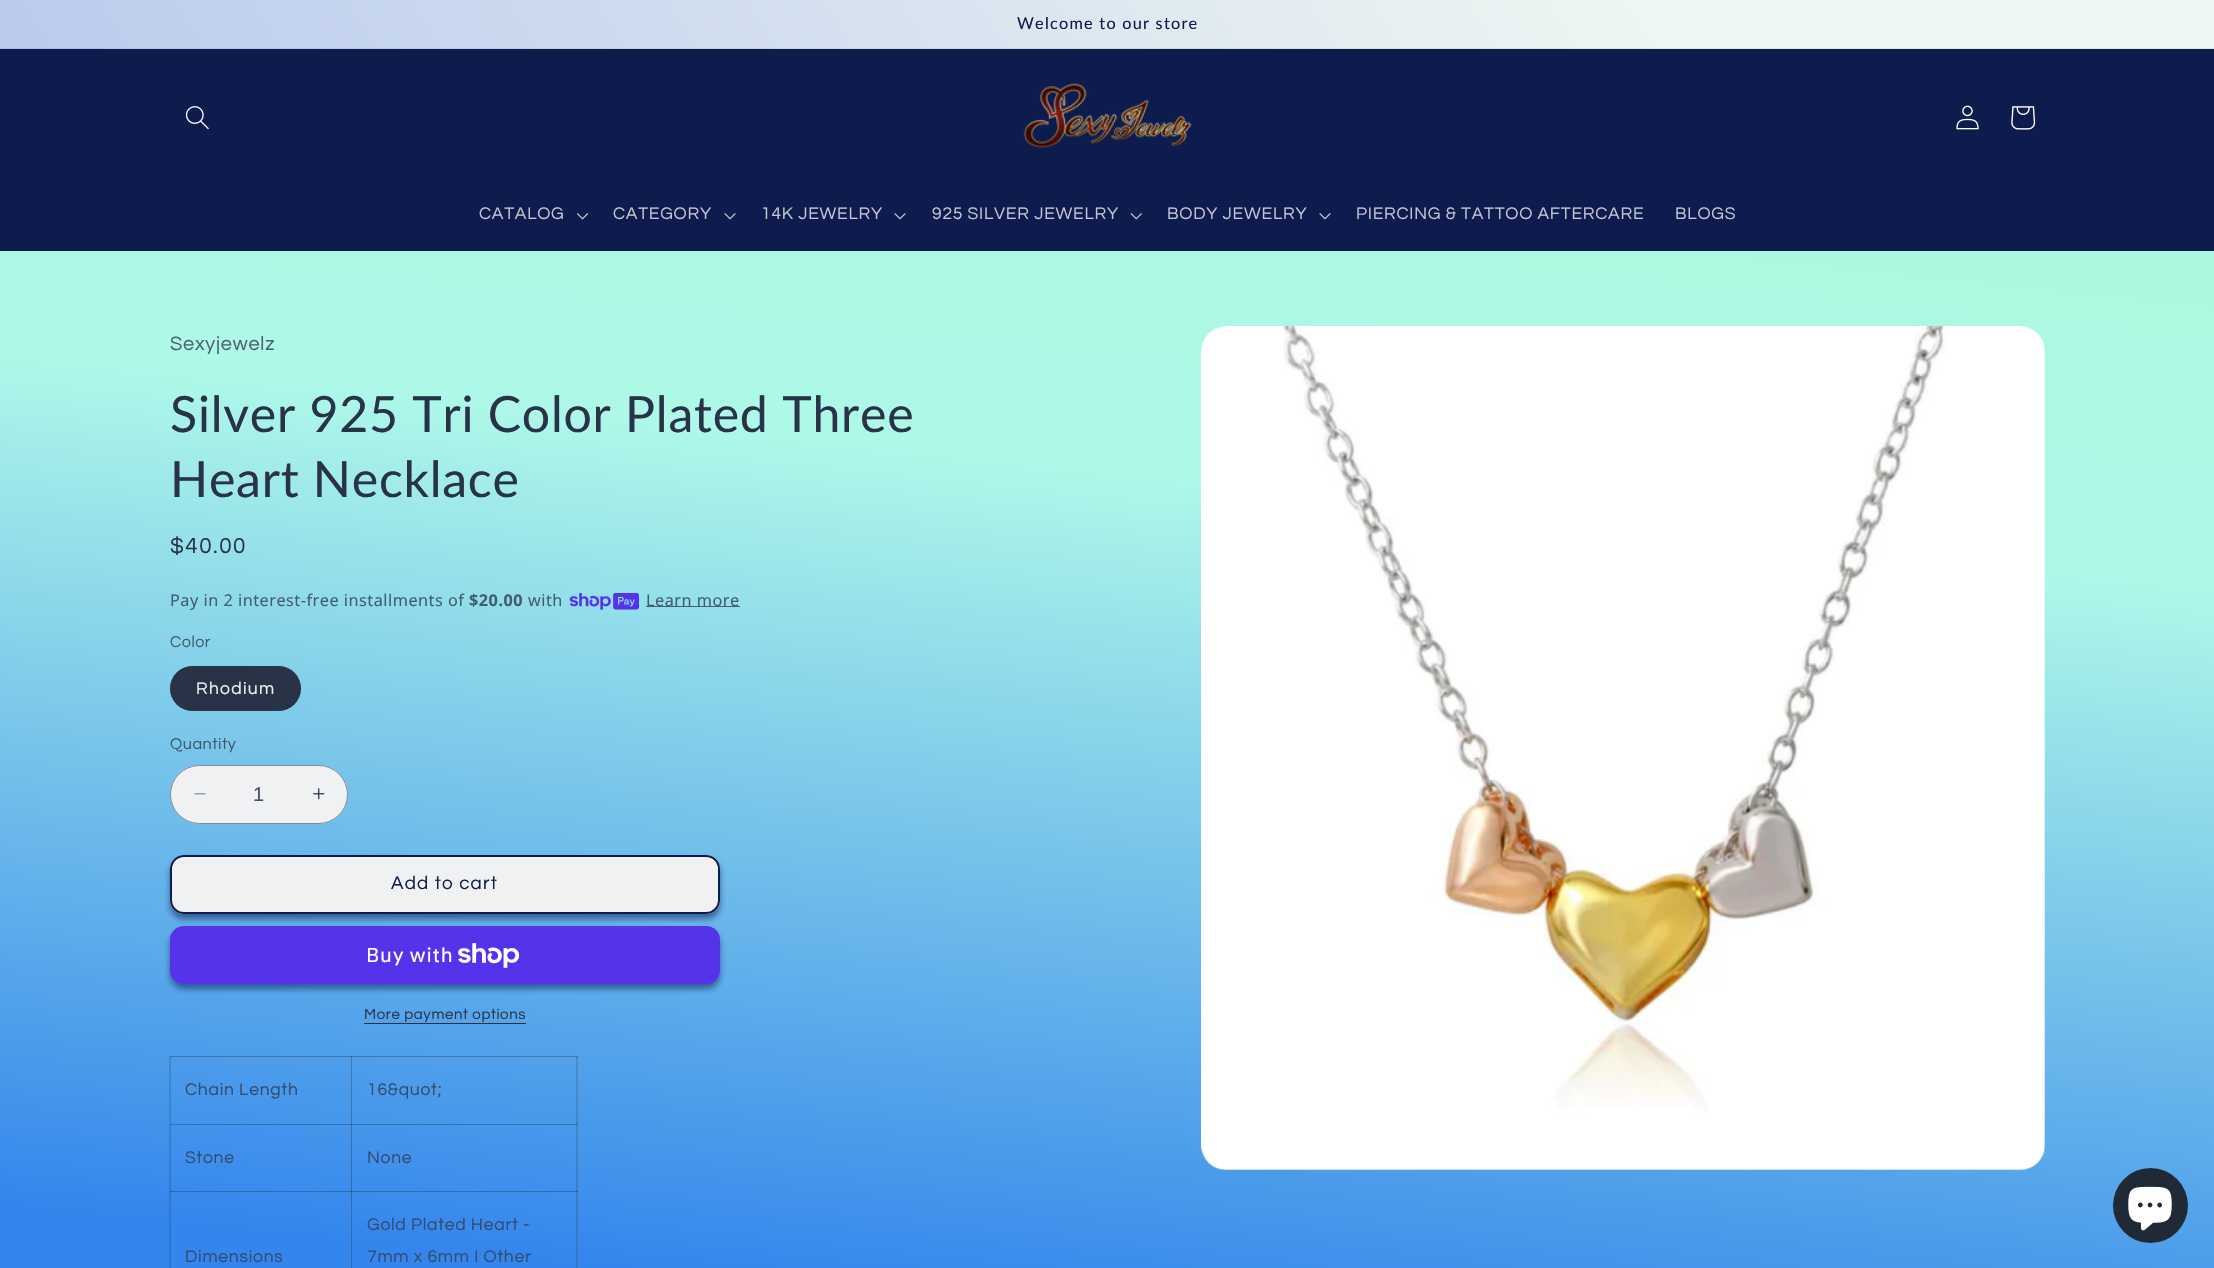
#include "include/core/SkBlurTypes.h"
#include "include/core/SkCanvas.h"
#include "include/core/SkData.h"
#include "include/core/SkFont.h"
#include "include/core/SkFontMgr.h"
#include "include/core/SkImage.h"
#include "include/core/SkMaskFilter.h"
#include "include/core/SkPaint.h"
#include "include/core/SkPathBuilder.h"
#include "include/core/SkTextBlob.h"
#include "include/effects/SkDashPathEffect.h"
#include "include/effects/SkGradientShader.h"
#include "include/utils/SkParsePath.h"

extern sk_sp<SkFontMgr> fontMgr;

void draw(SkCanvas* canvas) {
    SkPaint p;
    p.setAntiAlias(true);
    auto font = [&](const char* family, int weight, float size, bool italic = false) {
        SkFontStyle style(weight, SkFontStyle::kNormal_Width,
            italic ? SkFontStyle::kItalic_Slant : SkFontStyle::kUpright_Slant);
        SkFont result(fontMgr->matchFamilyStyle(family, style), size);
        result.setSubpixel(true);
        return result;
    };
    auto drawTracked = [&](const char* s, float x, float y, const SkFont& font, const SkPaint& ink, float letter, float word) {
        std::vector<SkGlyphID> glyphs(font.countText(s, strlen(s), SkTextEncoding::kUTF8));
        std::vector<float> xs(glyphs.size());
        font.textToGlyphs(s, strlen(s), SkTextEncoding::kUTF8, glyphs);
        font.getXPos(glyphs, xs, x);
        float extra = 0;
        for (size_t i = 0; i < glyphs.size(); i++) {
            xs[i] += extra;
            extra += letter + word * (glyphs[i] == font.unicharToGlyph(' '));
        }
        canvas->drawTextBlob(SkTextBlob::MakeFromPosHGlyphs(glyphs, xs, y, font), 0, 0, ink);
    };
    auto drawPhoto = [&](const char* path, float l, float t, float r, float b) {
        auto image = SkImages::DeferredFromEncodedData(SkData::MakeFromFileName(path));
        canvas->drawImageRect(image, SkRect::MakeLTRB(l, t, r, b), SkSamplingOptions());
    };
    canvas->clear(0xFFFFFFFF);
    {
        const SkColor colors[] = {0xFF3485EC, 0xFFAEF8E9, 0xFFAAF8DB};
        const float stops[] = {0.04f, 0.61f, 0.91f};
        const SkPoint ends[] = {{1029, 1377}, {1186, -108}};
        p.setShader(SkGradientShader::MakeLinear(ends, colors, stops, 3, SkTileMode::kClamp));
        p.setAlpha(255);
    }
    canvas->drawRect(SkRect::MakeLTRB(0, 251, 2214, 1268), p);
    {
        const SkColor colors[] = {0xFF77CBFF, 0xFFB6C7EC, 0xFFEEF6F2};
        const float stops[] = {0.08f, 0.22f, 0.81f};
        const SkPoint ends[] = {{39, 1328}, {2176, -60}};
        p.setShader(SkGradientShader::MakeLinear(ends, colors, stops, 3, SkTileMode::kClamp));
        p.setAlpha(255);
    }
    canvas->drawRect(SkRect::MakeLTRB(0, 0, 2214, 48), p);
    {
        const SkColor colors[] = {0xFF6FBDF1, 0xFFA9B9DF, 0xFFDCE4E5};
        const float stops[] = {0.08f, 0.22f, 0.81f};
        const SkPoint ends[] = {{39, 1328}, {2176, -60}};
        p.setShader(SkGradientShader::MakeLinear(ends, colors, stops, 3, SkTileMode::kClamp));
        p.setAlpha(255);
    }
    canvas->drawRect(SkRect::MakeLTRB(0, 48, 2214, 49), p);
    auto font1 = font("Lato", 400, 16.25f);
    p.setShader(nullptr);
    p.setColor(0xFF0E1B4D);
    drawTracked("Welcome to our store", 1017, 29, font1, p, 1.25f, 0);
    canvas->drawRect(SkRect::MakeLTRB(0, 49, 2214, 251), p);
    drawPhoto("media/1.png", 185, 106, 209, 130);
    drawPhoto("media/2.png", 1023, 83, 1192, 148);
    drawPhoto("media/3.png", 1956, 105, 1979, 130);
    drawPhoto("media/4.png", 2011, 106, 2036, 130);
    auto font2 = font("Questrial", 400, 17.5f);
    p.setColor(0xFFC3C6D3);
    drawTracked("CATALOG", 479, 219, font2, p, 0.75f, 0);
    drawPhoto("media/5.png", 576, 213, 589, 220);
    drawTracked("CATEGORY", 613, 219, font2, p, 0.75f, 0);
    drawPhoto("media/6.png", 724, 213, 736, 220);
    drawTracked("14K JEWELRY", 761, 219, font2, p, 0.75f, 0);
    drawPhoto("media/6.png", 894, 213, 906, 220);
    drawTracked("925 SILVER JEWELRY", 932, 219, font2, p, 0.75f, 0);
    drawPhoto("media/7.png", 1130, 213, 1142, 220);
    drawTracked("BODY JEWELRY", 1167, 219, font2, p, 0.75f, 0);
    drawPhoto("media/6.png", 1319, 213, 1331, 220);
    drawTracked("PIERCING & TATTOO AFTERCARE", 1356, 219, font2, p, 0.75f, 0);
    drawTracked("BLOGS", 1675, 219, font2, p, 0.75f, 0);
    auto font3 = font("Questrial", 400, 20);
    p.setColor(0xFF4A646F);
    drawTracked("Sexyjewelz", 170, 350, font3, p, 0.75f, 0);
    auto font4 = font("Lato", 400, 50);
    p.setColor(0xFF293347);
    drawTracked("Silver 925 Tri Color Plated Three", 170, 432, font4, p, 0.75f, 0);
    drawTracked("Heart Necklace", 170, 497, font4, p, 0.75f, 0);
    auto font5 = font("Questrial", 400, 22.5f);
    drawTracked("$40.00", 170, 553, font5, p, 1.5f, 0);
    auto font6 = font("Noto Sans", 400, 16.25f);
    p.setColor(0xFF435D70);
    drawTracked("Pay in 2 interest-free installments of", 170, 606, font6, p, 0.5f, 0);
    auto font7 = font("Noto Sans", 700, 16.25f);
    drawTracked("$20.00", 469, 606, font7, p, 0.5f, 0);
    drawTracked("with", 528, 606, font6, p, 0.5f, 0);
    drawPhoto("media/8.png", 569, 593, 639, 610);
    p.setColor(0xFF445E70);
    canvas->drawRect(SkRect::MakeLTRB(646, 606, 740, 607), p);
    p.setColor(0xFF435D70);
    drawTracked("Learn more", 646, 606, font6, p, 0.5f, 0);
    auto font8 = font("Questrial", 400, 16.25f);
    drawTracked("Color", 170, 647, font8, p, 0.5f, 0);
    p.setColor(0xFF293347);
    canvas->drawRoundRect(SkRect::MakeLTRB(170, 666, 301, 711), 22.5f, 22.5f, p);
    p.setStyle(SkPaint::kStroke_Style);
    p.setStrokeWidth(1);
    p.setColor(0x8C293347);
    canvas->drawRoundRect(SkRect::MakeLTRB(170.5f, 666.5f, 300.5f, 710.5f), 22, 22, p);
    p.setStyle(SkPaint::kFill_Style);
    p.setColor(0xFFF0F1F3);
    drawTracked("Rhodium", 196, 694, font2, p, 1.25f, 0);
    p.setColor(0xFF3D5870);
    drawTracked("Quantity", 170, 749, font8, p, 0.5f, 0);
    p.setColor(0xFFF0F1F3);
    canvas->drawRoundRect(SkRect::MakeLTRB(170, 765, 348, 824), 29.5f, 29.5f, p);
    drawPhoto("media/9.png", 194, 793, 206, 795);
    drawPhoto("media/10.png", 313, 788, 325, 800);
    p.setStyle(SkPaint::kStroke_Style);
    p.setColor(0x8C293347);
    canvas->drawRoundRect(SkRect::MakeLTRB(170.5f, 765.5f, 347.5f, 823.5f), 29, 29, p);
    auto font9 = font("Liberation Sans", 400, 20);
    p.setStyle(SkPaint::kFill_Style);
    p.setColor(0xFF475061);
    canvas->drawString("1", 253, 801, font9, p);
    p.setColor(0x8C0E1B4D);
    p.setMaskFilter(SkMaskFilter::MakeBlur(kNormal_SkBlurStyle, 3));
    canvas->drawRoundRect(SkRect::MakeLTRB(170, 860, 720, 919), 14, 14, p);
    p.setMaskFilter(nullptr);
    p.setColor(0xFFF0F1F3);
    canvas->drawRoundRect(SkRect::MakeLTRB(170, 855, 720, 914), 14, 14, p);
    p.setStyle(SkPaint::kStroke_Style);
    canvas->drawRoundRect(SkRect::MakeLTRB(170.5f, 855.5f, 719.5f, 913.5f), 13.5f, 13.5f, p);
    p.setStrokeWidth(2);
    p.setColor(0xFF0E1B4D);
    canvas->drawRoundRect(SkRect::MakeLTRB(171, 856, 719, 913), 13, 13, p);
    auto font10 = font("Questrial", 400, 18.75f);
    p.setStyle(SkPaint::kFill_Style);
    drawTracked("Add to cart", 391, 889, font10, p, 1.25f, 0);
    p.setColor(0x8C0E1B4D);
    p.setMaskFilter(SkMaskFilter::MakeBlur(kNormal_SkBlurStyle, 3));
    canvas->drawRoundRect(SkRect::MakeLTRB(170, 931, 720, 989), 14, 14, p);
    p.setMaskFilter(nullptr);
    p.setColor(0xFF5433EB);
    canvas->drawRoundRect(SkRect::MakeLTRB(170, 926, 720, 984), 14, 14, p);
    auto font11 = font("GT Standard", 400, 20);
    p.setColor(0xFFFFFFFF);
    drawTracked("Buy with", 366, 962, font11, p, 0.75f, 0);
    drawPhoto("media/11.png", 458, 943, 520, 968);
    auto font12 = font("Questrial", 400, 15);
    p.setColor(0xFF293347);
    drawTracked("More payment options", 364, 1019, font12, p, 0.6f, 0);
    canvas->drawRect(SkRect::MakeLTRB(364, 1023, 526, 1024), p);
    p.setStyle(SkPaint::kStroke_Style);
    p.setStrokeWidth(1);
    p.setColor(0x33293347);
    canvas->drawRect(SkRect::MakeLTRB(169.5f, 1056.5f, 577.5f, 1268.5f), p);
    p.setStyle(SkPaint::kFill_Style);
    {
        const struct { float l, t, r, b; SkColor color; } items[] = {
            {351, 1056, 578, 1057, 0x33293347},
            {351, 1124, 578, 1125, 0x33293347},
            {351, 1191, 578, 1192, 0x33293347},
            {576, 1191, 577, 1268, 0x33293347},
            {576, 1124, 577, 1193, 0x33293347},
            {576, 1056, 577, 1125, 0x33293347},
            {351, 1191, 352, 1268, 0x33293347},
            {170, 1191, 353, 1192, 0x33293347},
            {351, 1191, 352, 1268, 0x33293347},
            {351, 1191, 578, 1192, 0x33293347},
            {351, 1124, 352, 1193, 0x33293347},
            {170, 1124, 353, 1125, 0x33293347},
            {351, 1124, 352, 1193, 0x33293347},
            {351, 1124, 578, 1125, 0x33293347},
            {351, 1056, 352, 1125, 0x33293347},
            {170, 1056, 353, 1057, 0x33293347},
            {351, 1056, 352, 1125, 0x33293347},
            {170, 1191, 171, 1268, 0x33293347},
            {170, 1191, 353, 1192, 0x33293347},
            {170, 1124, 171, 1193, 0x33293347},
            {170, 1124, 353, 1125, 0x33293347},
            {170, 1056, 171, 1125, 0x33293347},
        };
        for (auto [l, t, r, b, color] : items) {
            p.setColor(color);
            canvas->drawRect(SkRect::MakeLTRB(l, t, r, b), p);
        }
    }
    p.setColor(0xFF314C70);
    {
        const struct { const char* s; float x, y; } items[] = {
            {"Chain Length", 185, 1095},
            {"16&quot;", 367, 1095},
            {"Stone", 185, 1163},
            {"None", 367, 1163},
            {"Dimensions", 185, 1262},
            {"Gold Plated Heart -", 367, 1230},
            {"7mm x 6mm I Other", 367, 1262},
        };
        for (auto [s, x, y] : items) {
            drawTracked(s, x, y, font2, p, 0.75f, 0);
        }
    }
    drawPhoto("media/12.png", 1201, 326, 2045, 1170);
    p.setColor(0xFF202A36);
    canvas->drawCircle(2150.5f, 1205.5f, 37.5f, p);
    drawPhoto("media/13.png", 2128, 1186, 2172, 1231);
}
